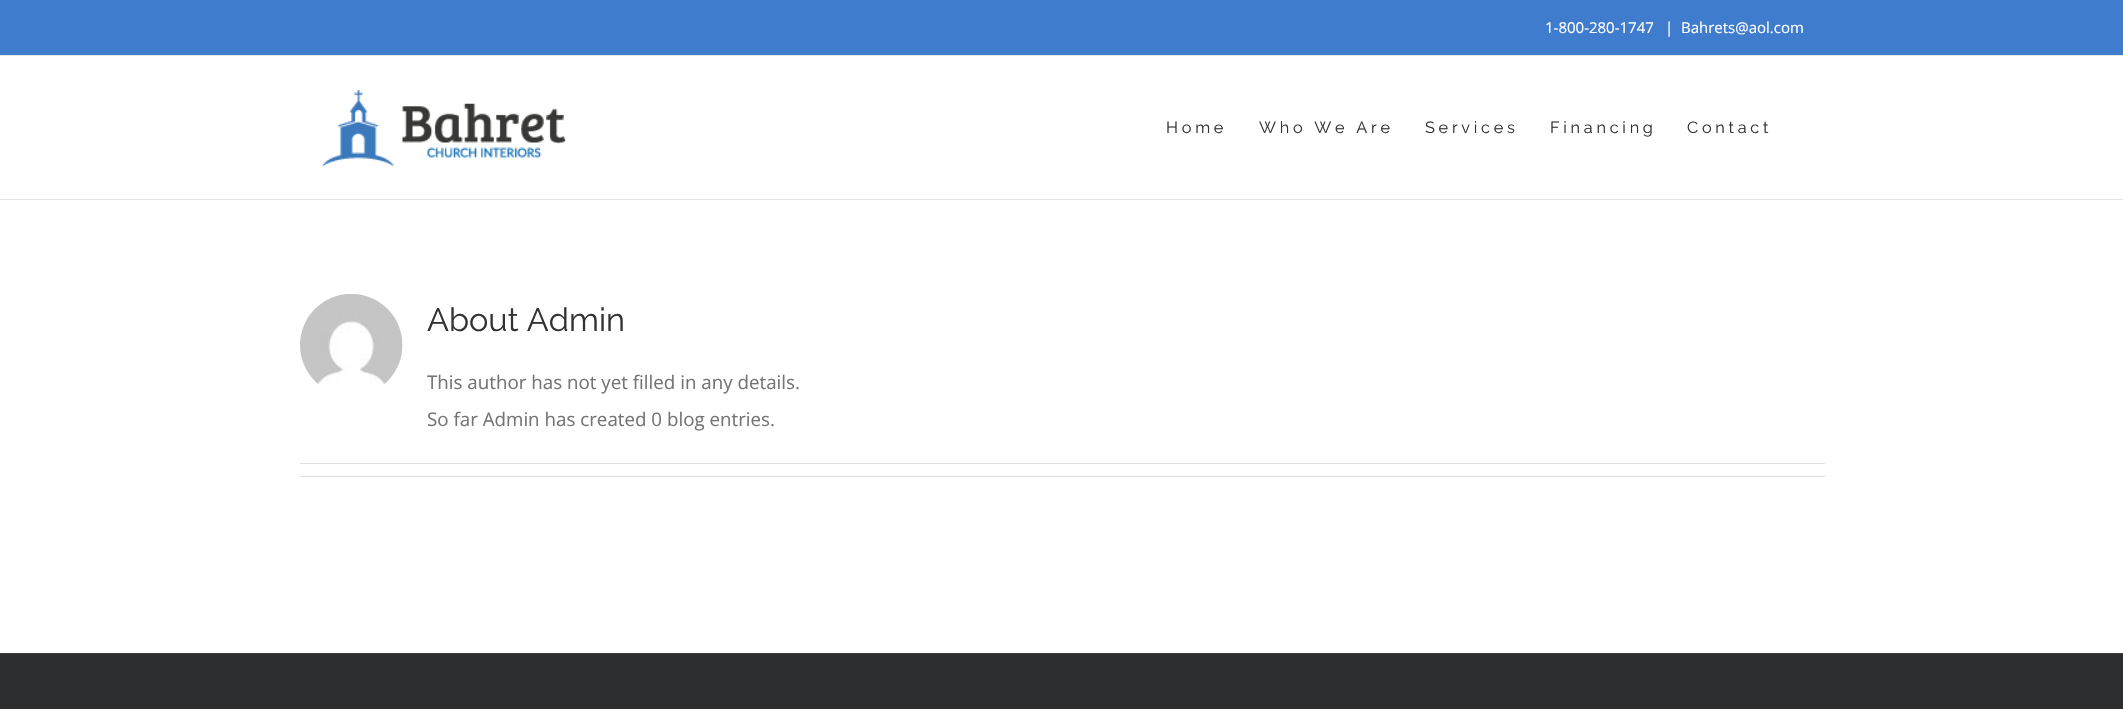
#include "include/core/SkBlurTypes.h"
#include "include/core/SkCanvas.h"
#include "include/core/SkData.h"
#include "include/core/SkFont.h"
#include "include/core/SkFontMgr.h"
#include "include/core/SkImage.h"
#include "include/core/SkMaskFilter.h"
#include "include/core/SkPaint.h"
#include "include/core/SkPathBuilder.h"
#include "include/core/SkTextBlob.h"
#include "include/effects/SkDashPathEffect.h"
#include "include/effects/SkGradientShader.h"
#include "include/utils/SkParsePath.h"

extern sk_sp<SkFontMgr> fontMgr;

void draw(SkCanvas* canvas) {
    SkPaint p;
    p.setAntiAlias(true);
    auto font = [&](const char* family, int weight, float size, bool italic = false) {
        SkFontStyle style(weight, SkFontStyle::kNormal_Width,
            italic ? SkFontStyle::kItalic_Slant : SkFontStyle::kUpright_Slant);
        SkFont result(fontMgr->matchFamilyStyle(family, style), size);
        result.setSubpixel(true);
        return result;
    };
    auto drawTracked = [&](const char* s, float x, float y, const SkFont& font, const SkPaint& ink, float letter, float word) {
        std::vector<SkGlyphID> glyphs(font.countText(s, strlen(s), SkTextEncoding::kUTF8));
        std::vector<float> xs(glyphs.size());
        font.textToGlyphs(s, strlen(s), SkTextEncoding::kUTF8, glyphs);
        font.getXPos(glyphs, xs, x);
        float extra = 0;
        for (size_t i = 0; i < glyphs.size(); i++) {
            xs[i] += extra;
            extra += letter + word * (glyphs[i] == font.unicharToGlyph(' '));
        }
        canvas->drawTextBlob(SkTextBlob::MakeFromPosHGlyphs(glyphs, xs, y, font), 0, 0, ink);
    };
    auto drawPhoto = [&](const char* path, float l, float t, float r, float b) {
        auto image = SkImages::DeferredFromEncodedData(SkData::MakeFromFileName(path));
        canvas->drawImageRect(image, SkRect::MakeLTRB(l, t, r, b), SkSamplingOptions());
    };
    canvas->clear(0xFFFFFFFF);
    p.setColor(0xFF3F7CCD);
    canvas->drawRect(SkRect::MakeLTRB(0, 0, 2123, 55), p);
    p.setColor(0xFFE5E5E5);
    canvas->drawRect(SkRect::MakeLTRB(0, 55, 2123, 56), p);
    auto font1 = font("Open Sans", 400, 15);
    p.setColor(0xFFFFFFFF);
    {
        const struct { const char* s; float x, y; } items[] = {
            {"1-800-280-1747", 1545, 33},
            {"|", 1665, 33},
            {"Bahrets@aol.com", 1681, 33},
        };
        for (auto [s, x, y] : items) {
            canvas->drawString(s, x, y, font1, p);
        }
    }
    p.setColor(0xFFE5E5E5);
    canvas->drawRect(SkRect::MakeLTRB(0, 199, 2123, 200), p);
    drawPhoto("media/1.png", 322, 89, 567, 167);
    auto font2 = font("Raleway", 400, 16.25f);
    p.setColor(0xFF333333);
    {
        const struct { const char* s; float x, y; } items[] = {
            {"Home", 1166, 133},
            {"Who We Are", 1259, 133},
            {"Services", 1425, 133},
            {"Financing", 1550, 133},
            {"Contact", 1687, 133},
        };
        for (auto [s, x, y] : items) {
            drawTracked(s, x, y, font2, p, 3.75f, 0);
        }
    }
    drawPhoto("media/2.png", 300, 294, 403, 385);
    auto font3 = font("Raleway", 400, 32.5f);
    canvas->drawString("About Admin", 427, 331, font3, p);
    auto font4 = font("Open Sans", 400, 18.75f);
    p.setColor(0xFF747474);
    canvas->drawString("This author has not yet filled in any details.", 427, 389, font4, p);
    canvas->drawString("So far Admin has created 0 blog entries.", 427, 426, font4, p);
    {
        const struct { float l, t, r, b; SkColor color; } items[] = {
            {300, 463, 1825, 464, 0xFFE0DEDE},
            {300, 476, 1825, 477, 0xFFE0DEDE},
            {0, 654, 2123, 709, 0xFF2C2D2F},
            {0, 653, 2123, 654, 0xFF404042},
        };
        for (auto [l, t, r, b, color] : items) {
            p.setColor(color);
            canvas->drawRect(SkRect::MakeLTRB(l, t, r, b), p);
        }
    }
}
